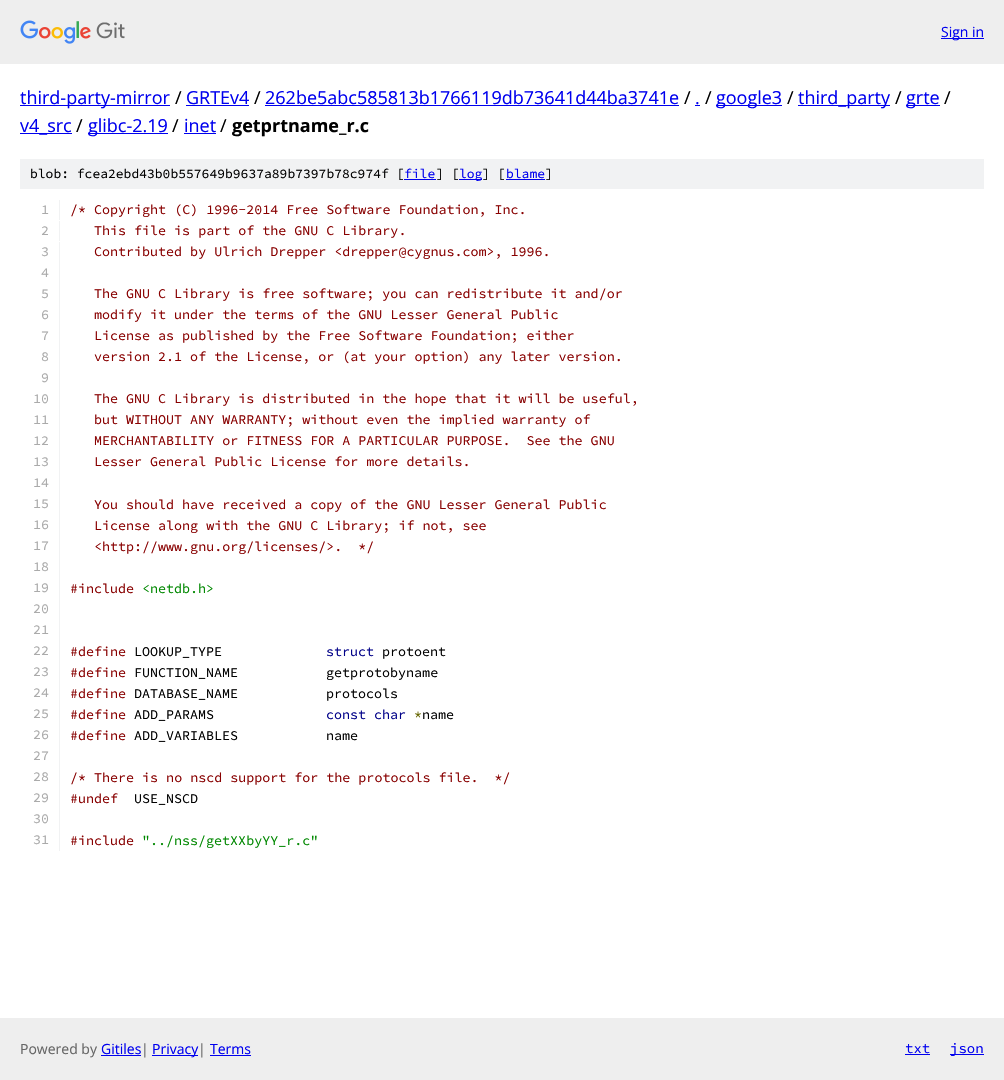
#include "include/core/SkBlurTypes.h"
#include "include/core/SkCanvas.h"
#include "include/core/SkData.h"
#include "include/core/SkFont.h"
#include "include/core/SkFontMgr.h"
#include "include/core/SkImage.h"
#include "include/core/SkMaskFilter.h"
#include "include/core/SkPaint.h"
#include "include/core/SkPathBuilder.h"
#include "include/core/SkTextBlob.h"
#include "include/effects/SkDashPathEffect.h"
#include "include/effects/SkGradientShader.h"
#include "include/utils/SkParsePath.h"

extern sk_sp<SkFontMgr> fontMgr;

void draw(SkCanvas* canvas) {
    SkPaint p;
    p.setAntiAlias(true);
    auto font = [&](const char* family, int weight, float size, bool italic = false) {
        SkFontStyle style(weight, SkFontStyle::kNormal_Width,
            italic ? SkFontStyle::kItalic_Slant : SkFontStyle::kUpright_Slant);
        SkFont result(fontMgr->matchFamilyStyle(family, style), size);
        result.setSubpixel(true);
        return result;
    };
    auto drawPhoto = [&](const char* path, float l, float t, float r, float b) {
        auto image = SkImages::DeferredFromEncodedData(SkData::MakeFromFileName(path));
        canvas->drawImageRect(image, SkRect::MakeLTRB(l, t, r, b), SkSamplingOptions());
    };
    canvas->clear(0xFFFFFFFF);
    p.setColor(0xFFEEEEEE);
    canvas->drawRect(SkRect::MakeLTRB(0, 0, 1004, 64), p);
    drawPhoto("media/1.png", 20, 20, 125, 44);
    p.setColor(0xFF0000EE);
    canvas->drawRect(SkRect::MakeLTRB(941, 38, 984, 39), p);
    auto font1 = font("Open Sans", 400, 14);
    canvas->drawString("Sign in", 941, 37, font1, p);
    canvas->drawRect(SkRect::MakeLTRB(20, 105, 170, 106), p);
    auto font2 = font("Open Sans", 400, 18);
    canvas->drawString("third-party-mirror", 20, 104, font2, p);
    p.setColor(0xFF000000);
    canvas->drawString("/", 175, 104, font2, p);
    p.setColor(0xFF0000EE);
    canvas->drawString("GRTEv4", 186, 104, font2, p);
    canvas->drawRect(SkRect::MakeLTRB(186, 105, 249, 106), p);
    p.setColor(0xFF000000);
    canvas->drawString("/", 254, 104, font2, p);
    p.setColor(0xFF0000EE);
    canvas->drawString("262be5abc585813b1766119db73641d44ba3741e", 265, 104, font2, p);
    canvas->drawRect(SkRect::MakeLTRB(265, 105, 679, 106), p);
    p.setColor(0xFF000000);
    canvas->drawString("/", 684, 104, font2, p);
    p.setColor(0xFF0000EE);
    canvas->drawString(".", 695, 104, font2, p);
    canvas->drawRect(SkRect::MakeLTRB(695, 105, 700, 106), p);
    p.setColor(0xFF000000);
    canvas->drawString("/", 705, 104, font2, p);
    p.setColor(0xFF0000EE);
    canvas->drawRect(SkRect::MakeLTRB(716, 105, 782, 106), p);
    canvas->drawString("google3", 716, 104, font2, p);
    p.setColor(0xFF000000);
    canvas->drawString("/", 787, 104, font2, p);
    p.setColor(0xFF0000EE);
    canvas->drawRect(SkRect::MakeLTRB(798, 105, 890, 106), p);
    canvas->drawString("third_party", 798, 104, font2, p);
    p.setColor(0xFF000000);
    canvas->drawString("/", 895, 104, font2, p);
    p.setColor(0xFF0000EE);
    canvas->drawRect(SkRect::MakeLTRB(906, 105, 940, 106), p);
    canvas->drawString("grte", 906, 104, font2, p);
    p.setColor(0xFF000000);
    canvas->drawString("/", 944, 104, font2, p);
    p.setColor(0xFF0000EE);
    canvas->drawRect(SkRect::MakeLTRB(20, 133, 72, 134), p);
    canvas->drawString("v4_src", 20, 132, font2, p);
    p.setColor(0xFF000000);
    canvas->drawString("/", 76, 132, font2, p);
    p.setColor(0xFF0000EE);
    canvas->drawRect(SkRect::MakeLTRB(88, 133, 168, 134), p);
    canvas->drawString("glibc-2.19", 88, 132, font2, p);
    p.setColor(0xFF000000);
    canvas->drawString("/", 172, 132, font2, p);
    p.setColor(0xFF0000EE);
    canvas->drawString("inet", 184, 132, font2, p);
    canvas->drawRect(SkRect::MakeLTRB(184, 133, 216, 134), p);
    p.setColor(0xFF000000);
    canvas->drawString("/", 220, 132, font2, p);
    auto font3 = font("Open Sans", 700, 18);
    canvas->drawString("getprtname_r.c", 232, 132, font3, p);
    p.setColor(0xFFF1F2F3);
    canvas->drawRect(SkRect::MakeLTRB(20, 159, 984, 189), p);
    auto font4 = font("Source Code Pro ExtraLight", 200, 13);
    p.setColor(0xFF000000);
    canvas->drawString("blob: fcea2ebd43b0b557649b9637a89b7397b78c974f [", 30, 178, font4, p);
    p.setColor(0xFF0000EE);
    canvas->drawString("file", 404, 178, font4, p);
    canvas->drawRect(SkRect::MakeLTRB(404, 179, 436, 180), p);
    p.setColor(0xFF000000);
    canvas->drawString("] [", 436, 178, font4, p);
    p.setColor(0xFF0000EE);
    canvas->drawRect(SkRect::MakeLTRB(459, 179, 482, 180), p);
    canvas->drawString("log", 459, 178, font4, p);
    p.setColor(0xFF000000);
    canvas->drawString("] [", 482, 178, font4, p);
    p.setColor(0xFF0000EE);
    canvas->drawString("blame", 506, 178, font4, p);
    canvas->drawRect(SkRect::MakeLTRB(506, 179, 545, 180), p);
    p.setColor(0xFF000000);
    canvas->drawString("]", 545, 178, font4, p);
    p.setColor(0xFFF1F2F3);
    canvas->drawRect(SkRect::MakeLTRB(59, 200, 60, 220), p);
    auto font5 = font("Source Code Pro ExtraLight", 200, 13.35f);
    p.setColor(0xFFAAAAAA);
    canvas->drawString("1", 41, 214, font5, p);
    p.setColor(0xFF880000);
    canvas->drawString("/* Copyright (C) 1996-2014 Free Software Foundation, Inc.", 70, 214, font5, p);
    p.setColor(0xFFF1F2F3);
    canvas->drawRect(SkRect::MakeLTRB(59, 221, 60, 241), p);
    p.setColor(0xFFAAAAAA);
    canvas->drawString("2", 41, 235, font5, p);
    p.setColor(0xFF880000);
    canvas->drawString("This file is part of the GNU C Library.", 94, 235, font5, p);
    p.setColor(0xFFF1F2F3);
    canvas->drawRect(SkRect::MakeLTRB(59, 242, 60, 851), p);
    p.setColor(0xFFAAAAAA);
    canvas->drawString("3", 41, 256, font5, p);
    p.setColor(0xFF880000);
    canvas->drawString("Contributed by Ulrich Drepper <drepper@cygnus.com>, 1996.", 94, 256, font5, p);
    p.setColor(0xFFAAAAAA);
    canvas->drawString("4", 41, 277, font5, p);
    canvas->drawString("5", 41, 298, font5, p);
    p.setColor(0xFF880000);
    canvas->drawString("The GNU C Library is free software; you can redistribute it and/or", 94, 298, font5, p);
    p.setColor(0xFFAAAAAA);
    canvas->drawString("6", 41, 319, font5, p);
    p.setColor(0xFF880000);
    canvas->drawString("modify it under the terms of the GNU Lesser General Public", 94, 319, font5, p);
    p.setColor(0xFFAAAAAA);
    canvas->drawString("7", 41, 340, font5, p);
    p.setColor(0xFF880000);
    canvas->drawString("License as published by the Free Software Foundation; either", 94, 340, font5, p);
    p.setColor(0xFFAAAAAA);
    canvas->drawString("8", 41, 361, font5, p);
    p.setColor(0xFF880000);
    canvas->drawString("version 2.1 of the License, or (at your option) any later version.", 94, 361, font5, p);
    p.setColor(0xFFAAAAAA);
    canvas->drawString("9", 41, 382, font5, p);
    canvas->drawString("10", 33, 403, font5, p);
    p.setColor(0xFF880000);
    canvas->drawString("The GNU C Library is distributed in the hope that it will be useful,", 94, 403, font5, p);
    p.setColor(0xFFAAAAAA);
    canvas->drawString("11", 33, 424, font5, p);
    p.setColor(0xFF880000);
    canvas->drawString("but WITHOUT ANY WARRANTY; without even the implied warranty of", 94, 424, font5, p);
    p.setColor(0xFFAAAAAA);
    canvas->drawString("12", 33, 445, font5, p);
    p.setColor(0xFF880000);
    canvas->drawString("MERCHANTABILITY or FITNESS FOR A PARTICULAR PURPOSE.  See the GNU", 94, 445, font5, p);
    p.setColor(0xFFAAAAAA);
    canvas->drawString("13", 33, 466, font5, p);
    p.setColor(0xFF880000);
    canvas->drawString("Lesser General Public License for more details.", 94, 466, font5, p);
    p.setColor(0xFFAAAAAA);
    canvas->drawString("14", 33, 487, font5, p);
    canvas->drawString("15", 33, 508, font5, p);
    p.setColor(0xFF880000);
    canvas->drawString("You should have received a copy of the GNU Lesser General Public", 94, 509, font5, p);
    p.setColor(0xFFAAAAAA);
    canvas->drawString("16", 33, 529, font5, p);
    p.setColor(0xFF880000);
    canvas->drawString("License along with the GNU C Library; if not, see", 94, 530, font5, p);
    p.setColor(0xFFAAAAAA);
    canvas->drawString("17", 33, 550, font5, p);
    p.setColor(0xFF880000);
    canvas->drawString("<http://www.gnu.org/licenses/>.  */", 94, 551, font5, p);
    p.setColor(0xFFAAAAAA);
    canvas->drawString("18", 33, 571, font5, p);
    canvas->drawString("19", 33, 592, font5, p);
    p.setColor(0xFF880000);
    canvas->drawString("#include", 70, 593, font5, p);
    p.setColor(0xFF008800);
    canvas->drawString("<netdb.h>", 142, 593, font5, p);
    p.setColor(0xFFAAAAAA);
    {
        const struct { const char* s; float x, y; } items[] = {
            {"20", 33, 613},
            {"21", 33, 634},
            {"22", 33, 655},
        };
        for (auto [s, x, y] : items) {
            canvas->drawString(s, x, y, font5, p);
        }
    }
    p.setColor(0xFF880000);
    canvas->drawString("#define", 70, 656, font5, p);
    p.setColor(0xFF000000);
    canvas->drawString("LOOKUP_TYPE", 134, 656, font5, p);
    p.setColor(0xFF000088);
    canvas->drawString("struct", 326, 656, font5, p);
    p.setColor(0xFF000000);
    canvas->drawString("protoent", 382, 656, font5, p);
    p.setColor(0xFFAAAAAA);
    canvas->drawString("23", 33, 676, font5, p);
    p.setColor(0xFF880000);
    canvas->drawString("#define", 70, 677, font5, p);
    p.setColor(0xFF000000);
    canvas->drawString("FUNCTION_NAME", 134, 677, font5, p);
    canvas->drawString("getprotobyname", 326, 677, font5, p);
    p.setColor(0xFFAAAAAA);
    canvas->drawString("24", 33, 697, font5, p);
    p.setColor(0xFF880000);
    canvas->drawString("#define", 70, 698, font5, p);
    p.setColor(0xFF000000);
    canvas->drawString("DATABASE_NAME", 134, 698, font5, p);
    canvas->drawString("protocols", 326, 698, font5, p);
    p.setColor(0xFFAAAAAA);
    canvas->drawString("25", 33, 718, font5, p);
    p.setColor(0xFF880000);
    canvas->drawString("#define", 70, 719, font5, p);
    p.setColor(0xFF000000);
    canvas->drawString("ADD_PARAMS", 134, 719, font5, p);
    p.setColor(0xFF000088);
    canvas->drawString("const char", 326, 719, font5, p);
    p.setColor(0xFF666600);
    canvas->drawString("*", 414, 719, font5, p);
    p.setColor(0xFF000000);
    canvas->drawString("name", 422, 719, font5, p);
    p.setColor(0xFFAAAAAA);
    canvas->drawString("26", 33, 739, font5, p);
    p.setColor(0xFF880000);
    canvas->drawString("#define", 70, 740, font5, p);
    p.setColor(0xFF000000);
    canvas->drawString("ADD_VARIABLES", 134, 740, font5, p);
    canvas->drawString("name", 326, 740, font5, p);
    p.setColor(0xFFAAAAAA);
    canvas->drawString("27", 33, 760, font5, p);
    canvas->drawString("28", 33, 781, font5, p);
    p.setColor(0xFF880000);
    canvas->drawString("/* There is no nscd support for the protocols file.  */", 70, 782, font5, p);
    p.setColor(0xFFAAAAAA);
    canvas->drawString("29", 33, 802, font5, p);
    p.setColor(0xFF880000);
    canvas->drawString("#undef", 70, 803, font5, p);
    p.setColor(0xFF000000);
    canvas->drawString("USE_NSCD", 134, 803, font5, p);
    p.setColor(0xFFAAAAAA);
    canvas->drawString("30", 33, 823, font5, p);
    canvas->drawString("31", 33, 844, font5, p);
    p.setColor(0xFF880000);
    canvas->drawString("#include", 70, 845, font5, p);
    p.setColor(0xFF008800);
    canvas->drawString("\"../nss/getXXbyYY_r.c\"", 142, 845, font5, p);
    p.setColor(0xFFEEEEEE);
    canvas->drawRect(SkRect::MakeLTRB(0, 1018, 1004, 1080), p);
    p.setColor(0xFF666666);
    canvas->drawString("Powered by", 20, 1054, font1, p);
    p.setColor(0xFF0000EE);
    canvas->drawString("Gitiles", 101, 1054, font1, p);
    canvas->drawRect(SkRect::MakeLTRB(101, 1055, 141, 1056), p);
    p.setColor(0xFF666666);
    canvas->drawString("|", 141, 1054, font1, p);
    p.setColor(0xFF0000EE);
    canvas->drawRect(SkRect::MakeLTRB(152, 1055, 198, 1056), p);
    canvas->drawString("Privacy", 152, 1054, font1, p);
    p.setColor(0xFF666666);
    canvas->drawString("|", 198, 1054, font1, p);
    p.setColor(0xFF0000EE);
    canvas->drawString("Terms", 210, 1054, font1, p);
    canvas->drawRect(SkRect::MakeLTRB(210, 1055, 251, 1056), p);
    auto font6 = font("Source Code Pro ExtraLight", 200, 14);
    canvas->drawString("txt", 905, 1053, font6, p);
    canvas->drawRect(SkRect::MakeLTRB(905, 1054, 930, 1055), p);
    canvas->drawRect(SkRect::MakeLTRB(950, 1054, 984, 1055), p);
    canvas->drawString("json", 950, 1053, font6, p);
}
